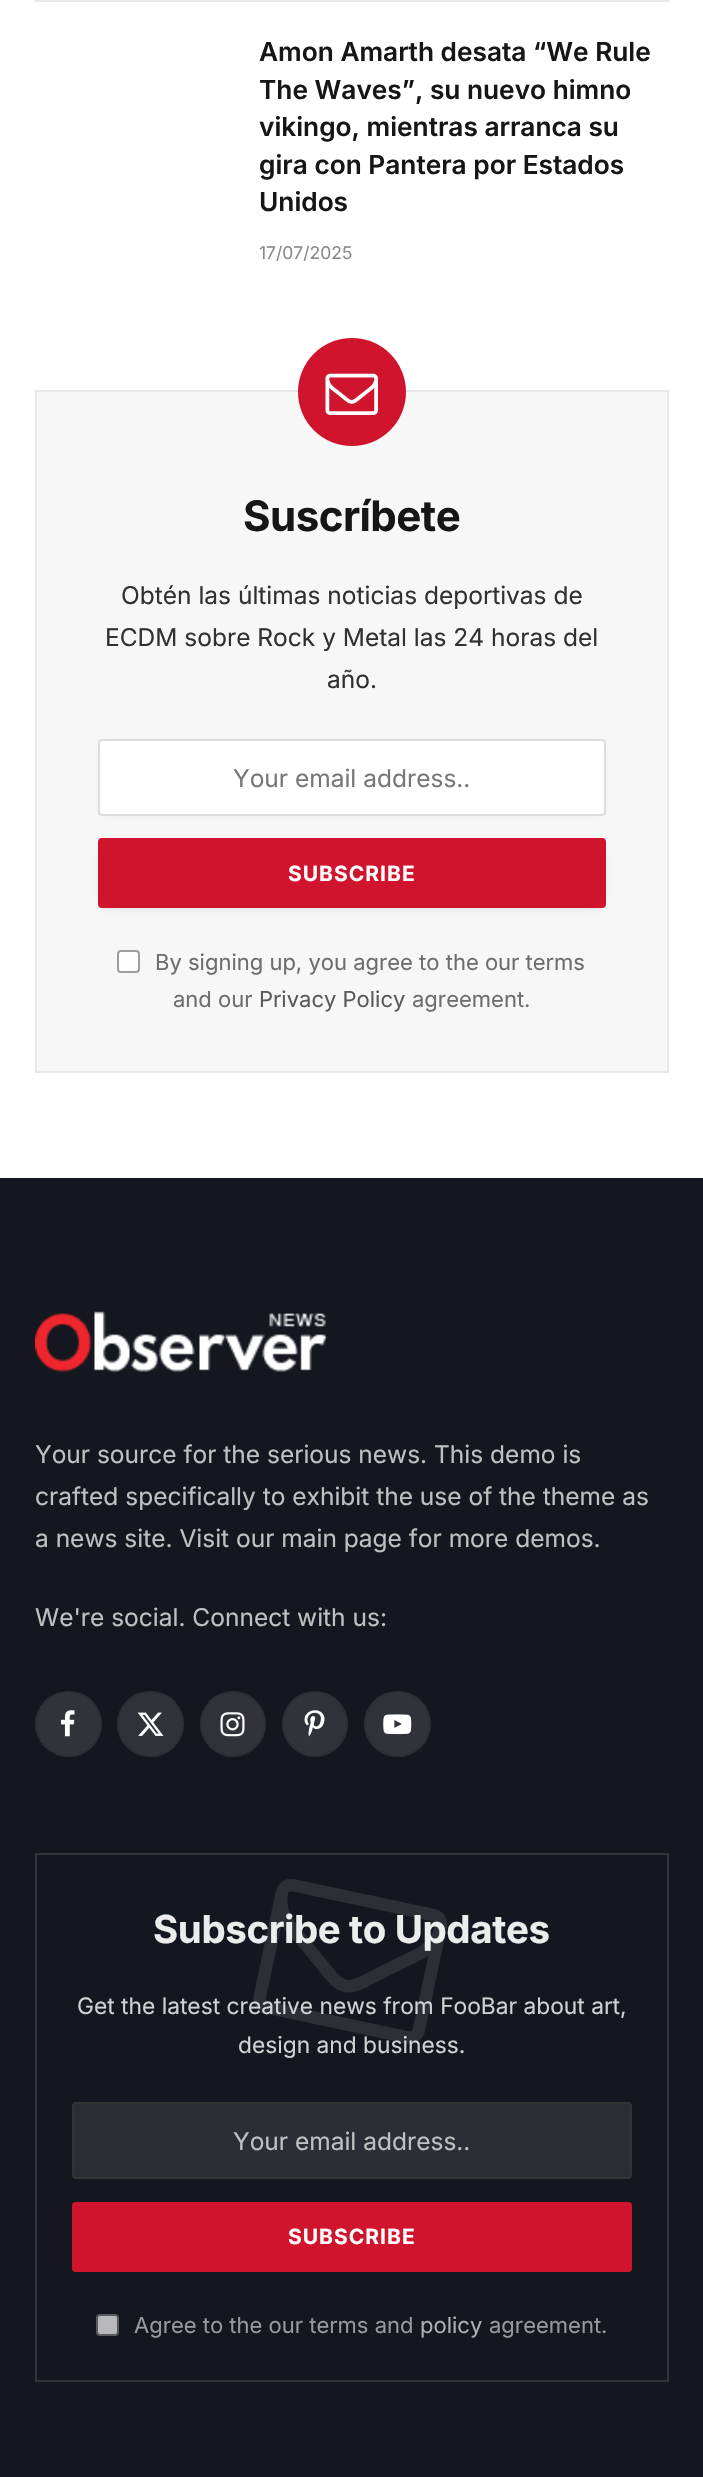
#include "include/core/SkBlurTypes.h"
#include "include/core/SkCanvas.h"
#include "include/core/SkData.h"
#include "include/core/SkFont.h"
#include "include/core/SkFontMgr.h"
#include "include/core/SkImage.h"
#include "include/core/SkMaskFilter.h"
#include "include/core/SkPaint.h"
#include "include/core/SkPathBuilder.h"
#include "include/core/SkTextBlob.h"
#include "include/effects/SkDashPathEffect.h"
#include "include/effects/SkGradientShader.h"
#include "include/utils/SkParsePath.h"

extern sk_sp<SkFontMgr> fontMgr;

void draw(SkCanvas* canvas) {
    SkPaint p;
    p.setAntiAlias(true);
    auto font = [&](const char* family, int weight, float size, bool italic = false) {
        SkFontStyle style(weight, SkFontStyle::kNormal_Width,
            italic ? SkFontStyle::kItalic_Slant : SkFontStyle::kUpright_Slant);
        SkFont result(fontMgr->matchFamilyStyle(family, style), size);
        result.setSubpixel(true);
        return result;
    };
    auto drawTracked = [&](const char* s, float x, float y, const SkFont& font, const SkPaint& ink, float letter, float word) {
        std::vector<SkGlyphID> glyphs(font.countText(s, strlen(s), SkTextEncoding::kUTF8));
        std::vector<float> xs(glyphs.size());
        font.textToGlyphs(s, strlen(s), SkTextEncoding::kUTF8, glyphs);
        font.getXPos(glyphs, xs, x);
        float extra = 0;
        for (size_t i = 0; i < glyphs.size(); i++) {
            xs[i] += extra;
            extra += letter + word * (glyphs[i] == font.unicharToGlyph(' '));
        }
        canvas->drawTextBlob(SkTextBlob::MakeFromPosHGlyphs(glyphs, xs, y, font), 0, 0, ink);
    };
    auto drawPhoto = [&](const char* path, float l, float t, float r, float b) {
        auto image = SkImages::DeferredFromEncodedData(SkData::MakeFromFileName(path));
        canvas->drawImageRect(image, SkRect::MakeLTRB(l, t, r, b), SkSamplingOptions());
    };
    canvas->clear(0xFFFFFFFF);
    p.setColor(0xFFE8E8E8);
    canvas->drawRect(SkRect::MakeLTRB(35, 0, 669, 2), p);
    auto font1 = font("Inter", 600, 26.25f);
    p.setColor(0xFF161616);
    {
        const struct { const char* s; float x, y; } items[] = {
            {"Amon Amarth desata “We Rule", 259, 61},
            {"The Waves”, su nuevo himno", 259, 99},
            {"vikingo, mientras arranca su", 259, 136},
            {"gira con Pantera por Estados", 259, 174},
            {"Unidos", 259, 211},
        };
        for (auto [s, x, y] : items) {
            canvas->drawString(s, x, y, font1, p);
        }
    }
    auto font2 = font("Inter", 400, 17.5f);
    p.setColor(0xFF8A8A8A);
    canvas->drawString("17/07/2025", 259, 259, font2, p);
    p.setColor(0xFFF7F7F7);
    canvas->drawRect(SkRect::MakeLTRB(36, 391, 668, 1072), p);
    p.setStyle(SkPaint::kStroke_Style);
    p.setStrokeWidth(2);
    p.setColor(0xFFE8E8E8);
    canvas->drawRect(SkRect::MakeLTRB(36, 391, 668, 1072), p);
    p.setStyle(SkPaint::kFill_Style);
    p.setColor(0xFFD1142E);
    canvas->drawCircle(352, 392, 54, p);
    drawPhoto("media/1.png", 325, 373, 378, 415);
    auto font3 = font("Inter", 700, 42);
    p.setColor(0xFF161616);
    drawTracked("Suscríbete", 243, 531, font3, p, -0.5f, 0);
    auto font4 = font("Inter", 400, 24.5f);
    p.setColor(0xFF313131);
    {
        const struct { const char* s; float x, y; } items[] = {
            {"Obtén las últimas noticias deportivas de", 121, 604},
            {"ECDM sobre Rock y Metal las 24 horas del", 105, 646},
            {"año.", 327, 688},
        };
        for (auto [s, x, y] : items) {
            canvas->drawString(s, x, y, font4, p);
        }
    }
    p.setColor(0x1A000000);
    p.setMaskFilter(SkMaskFilter::MakeBlur(kNormal_SkBlurStyle, 6));
    canvas->drawRect(SkRect::MakeLTRB(105, 749, 599, 812), p);
    p.setMaskFilter(nullptr);
    p.setColor(0xFFFFFFFF);
    canvas->drawRoundRect(SkRect::MakeLTRB(99, 740, 605, 815), 3, 3, p);
    p.setStyle(SkPaint::kStroke_Style);
    p.setColor(0xFFDDDDDD);
    canvas->drawRoundRect(SkRect::MakeLTRB(99, 740, 605, 815), 3, 3, p);
    p.setStyle(SkPaint::kFill_Style);
    p.setColor(0xFF777777);
    canvas->drawString("Your email address..", 233, 787, font4, p);
    p.setColor(0x29000000);
    p.setMaskFilter(SkMaskFilter::MakeBlur(kNormal_SkBlurStyle, 6));
    canvas->drawRect(SkRect::MakeLTRB(105, 849, 599, 905), p);
    p.setMaskFilter(nullptr);
    p.setColor(0xFFD1142E);
    canvas->drawRoundRect(SkRect::MakeLTRB(98, 838, 606, 908), 4, 4, p);
    auto font5 = font("Inter", 700, 21);
    p.setColor(0xFFFFFFFF);
    drawTracked("SUBSCRIBE", 288, 881, font5, p, 1, 0);
    p.setColor(0xFFFDFDFD);
    canvas->drawRoundRect(SkRect::MakeLTRB(118, 951, 139, 972), 3, 3, p);
    p.setStyle(SkPaint::kStroke_Style);
    p.setColor(0xFF9D9D9D);
    canvas->drawRoundRect(SkRect::MakeLTRB(118, 951, 139, 972), 3, 3, p);
    auto font6 = font("Inter", 400, 22);
    p.setStyle(SkPaint::kFill_Style);
    p.setColor(0xFF6D6D6D);
    canvas->drawString("By signing up, you agree to the our terms", 155, 970, font6, p);
    canvas->drawString("and our", 173, 1007, font6, p);
    p.setColor(0xFF5A5A5A);
    canvas->drawString("Privacy Policy", 259, 1007, font6, p);
    p.setColor(0xFF6D6D6D);
    canvas->drawString("agreement.", 412, 1007, font6, p);
    p.setColor(0xFF14171F);
    canvas->drawRect(SkRect::MakeLTRB(0, 1178, 703, 2477), p);
    drawPhoto("media/2.png", 35, 1311, 328, 1372);
    p.setColor(0xFFC0C0C0);
    {
        const struct { const char* s; float x, y; } items[] = {
            {"Your source for the serious news. This demo is", 35, 1463},
            {"crafted specifically to exhibit the use of the theme as", 35, 1505},
            {"a news site. Visit our main page for more demos.", 35, 1547},
            {"We're social. Connect with us:", 35, 1626},
        };
        for (auto [s, x, y] : items) {
            canvas->drawString(s, x, y, font4, p);
        }
    }
    p.setColor(0xFF30333A);
    canvas->drawRoundRect(SkRect::MakeLTRB(35, 1691, 102, 1757), 33, 33, p);
    p.setStyle(SkPaint::kStroke_Style);
    p.setColor(0x17000000);
    canvas->drawRoundRect(SkRect::MakeLTRB(36, 1692, 101, 1756), 32, 32, p);
    drawPhoto("media/3.png", 61, 1710, 75, 1737);
    p.setStyle(SkPaint::kFill_Style);
    p.setColor(0xFF30333A);
    canvas->drawRoundRect(SkRect::MakeLTRB(117, 1691, 184, 1757), 33, 33, p);
    p.setStyle(SkPaint::kStroke_Style);
    p.setColor(0x17000000);
    canvas->drawRoundRect(SkRect::MakeLTRB(118, 1692, 183, 1756), 32, 32, p);
    drawPhoto("media/4.png", 137, 1712, 164, 1736);
    p.setStyle(SkPaint::kFill_Style);
    p.setColor(0xFF30333A);
    canvas->drawCircle(233, 1724, 33, p);
    p.setStyle(SkPaint::kStroke_Style);
    p.setColor(0x17000000);
    canvas->drawCircle(233, 1724, 32, p);
    drawPhoto("media/5.png", 220, 1712, 245, 1737);
    p.setStyle(SkPaint::kFill_Style);
    p.setColor(0xFF30333A);
    canvas->drawCircle(315, 1724, 33, p);
    p.setStyle(SkPaint::kStroke_Style);
    p.setColor(0x17000000);
    canvas->drawCircle(315, 1724, 32, p);
    drawPhoto("media/6.png", 304, 1710, 325, 1737);
    p.setStyle(SkPaint::kFill_Style);
    p.setColor(0xFF30333A);
    canvas->drawRoundRect(SkRect::MakeLTRB(364, 1691, 431, 1757), 33, 33, p);
    p.setStyle(SkPaint::kStroke_Style);
    p.setColor(0x17000000);
    canvas->drawRoundRect(SkRect::MakeLTRB(365, 1692, 430, 1756), 32, 32, p);
    drawPhoto("media/7.png", 383, 1714, 412, 1735);
    p.setColor(0xFF33353C);
    canvas->drawRect(SkRect::MakeLTRB(36, 1854, 668, 2381), p);
    auto font7 = font("Inter", 700, 38.5f);
    p.setStyle(SkPaint::kFill_Style);
    p.setColor(0xFFECECEC);
    drawTracked("Subscribe to Updates", 153, 1943, font7, p, -0.4f, 0);
    auto font8 = font("Inter", 400, 22.75f);
    p.setColor(0xFFD0D1D2);
    canvas->drawString("Get the latest creative news from FooBar about art,", 77, 2014, font8, p);
    canvas->drawString("design and business.", 238, 2053, font8, p);
    drawPhoto("media/8.png", 253, 1879, 448, 2044);
    p.setColor(0xFF2C2E35);
    canvas->drawRoundRect(SkRect::MakeLTRB(73, 2103, 631, 2178), 3, 3, p);
    p.setStyle(SkPaint::kStroke_Style);
    p.setColor(0xFF333333);
    canvas->drawRoundRect(SkRect::MakeLTRB(73, 2103, 631, 2178), 3, 3, p);
    p.setStyle(SkPaint::kFill_Style);
    p.setColor(0xFFC0C0C0);
    canvas->drawString("Your email address..", 233, 2150, font4, p);
    p.setColor(0xFFD1142E);
    canvas->drawRoundRect(SkRect::MakeLTRB(72, 2202, 632, 2272), 4, 4, p);
    p.setColor(0xFFFFFFFF);
    drawTracked("SUBSCRIBE", 288, 2244, font5, p, 1, 0);
    p.setColor(0xFFB9B9BC);
    canvas->drawRoundRect(SkRect::MakeLTRB(97, 2315, 118, 2335), 3, 3, p);
    p.setStyle(SkPaint::kStroke_Style);
    p.setColor(0xFF595A5C);
    canvas->drawRoundRect(SkRect::MakeLTRB(97, 2315, 118, 2335), 3, 3, p);
    p.setStyle(SkPaint::kFill_Style);
    p.setColor(0xFF98999D);
    canvas->drawString("Agree to the our terms and", 134, 2333, font6, p);
    p.setColor(0xFFAEAFB1);
    canvas->drawString("policy", 420, 2333, font6, p);
    p.setColor(0xFF98999D);
    canvas->drawString("agreement.", 489, 2333, font6, p);
}
